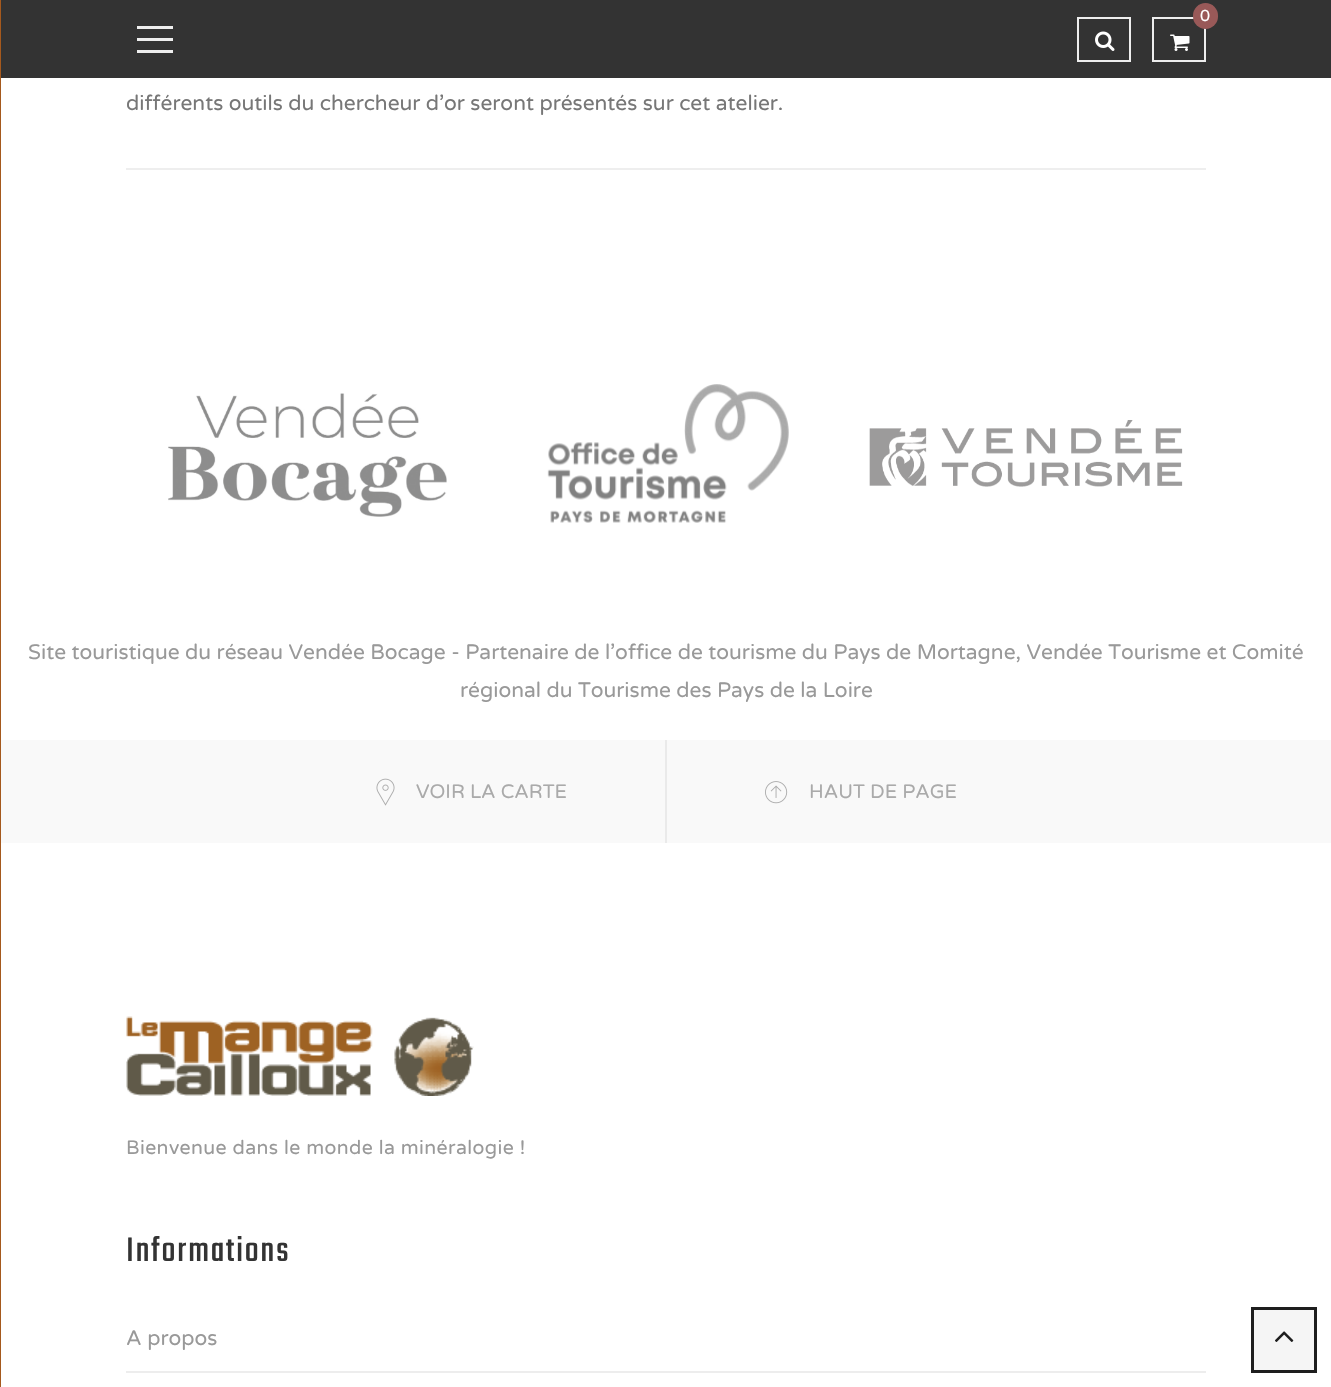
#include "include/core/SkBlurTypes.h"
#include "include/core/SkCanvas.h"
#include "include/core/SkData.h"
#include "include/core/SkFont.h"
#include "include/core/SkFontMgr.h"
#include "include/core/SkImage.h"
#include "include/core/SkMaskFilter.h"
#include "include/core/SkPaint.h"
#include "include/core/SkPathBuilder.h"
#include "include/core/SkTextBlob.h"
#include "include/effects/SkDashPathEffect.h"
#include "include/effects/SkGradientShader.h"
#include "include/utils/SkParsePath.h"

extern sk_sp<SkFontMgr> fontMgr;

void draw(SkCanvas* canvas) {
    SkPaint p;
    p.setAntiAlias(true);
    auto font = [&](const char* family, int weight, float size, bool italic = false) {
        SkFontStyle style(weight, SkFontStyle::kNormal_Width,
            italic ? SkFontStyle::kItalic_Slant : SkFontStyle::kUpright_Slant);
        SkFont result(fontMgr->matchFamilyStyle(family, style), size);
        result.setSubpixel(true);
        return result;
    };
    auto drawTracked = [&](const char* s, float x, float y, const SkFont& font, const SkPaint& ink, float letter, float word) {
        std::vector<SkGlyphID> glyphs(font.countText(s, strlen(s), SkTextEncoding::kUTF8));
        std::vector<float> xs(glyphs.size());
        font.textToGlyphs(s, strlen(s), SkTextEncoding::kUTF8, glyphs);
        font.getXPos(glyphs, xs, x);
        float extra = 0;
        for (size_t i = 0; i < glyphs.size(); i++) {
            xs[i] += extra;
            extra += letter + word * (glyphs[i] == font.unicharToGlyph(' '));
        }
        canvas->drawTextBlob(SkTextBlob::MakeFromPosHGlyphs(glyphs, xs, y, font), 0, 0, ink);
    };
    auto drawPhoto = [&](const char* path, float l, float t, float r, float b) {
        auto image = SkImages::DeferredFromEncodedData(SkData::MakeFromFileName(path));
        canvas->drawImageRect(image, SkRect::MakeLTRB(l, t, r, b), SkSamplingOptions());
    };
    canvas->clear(0xFFFFFFFF);
    p.setColor(0xFF333333);
    canvas->drawRect(SkRect::MakeLTRB(1, 0, 1331, 78), p);
    p.setColor(0xFFA5591D);
    canvas->drawRect(SkRect::MakeLTRB(0, 0, 1, 1387), p);
    p.setStyle(SkPaint::kStroke_Style);
    p.setStrokeWidth(2);
    p.setColor(0xFFEEEEEE);
    canvas->drawRect(SkRect::MakeLTRB(1153, 18, 1205, 61), p);
    p.setStyle(SkPaint::kFill_Style);
    p.setColor(0xFF995958);
    canvas->drawRoundRect(SkRect::MakeLTRB(1193, 3, 1218, 29), 12.5f, 12.5f, p);
    auto font1 = font("Varela Round", 400, 16);
    p.setColor(0xFFFFFFFF);
    canvas->drawString("0", 1200, 21, font1, p);
    drawPhoto("media/1.png", 1170, 34, 1190, 51);
    p.setStyle(SkPaint::kStroke_Style);
    p.setColor(0xFFEEEEEE);
    canvas->drawRect(SkRect::MakeLTRB(1078, 18, 1130, 61), p);
    drawPhoto("media/2.png", 1095, 31, 1115, 51);
    p.setStyle(SkPaint::kFill_Style);
    {
        const struct { float l, t, r, b; SkColor color; } items[] = {
            {137, 26, 173, 29, 0xFFEEEEEE},
            {137, 38, 173, 41, 0xFFEEEEEE},
            {137, 50, 173, 53, 0xFFEEEEEE},
            {126, 168, 1206, 170, 0xFFEEEEEE},
        };
        for (auto [l, t, r, b, color] : items) {
            p.setColor(color);
            canvas->drawRect(SkRect::MakeLTRB(l, t, r, b), p);
        }
    }
    auto font2 = font("Varela Round", 400, 21);
    p.setColor(0xFF777777);
    canvas->drawString("différents outils du chercheur d’or seront présentés sur cet atelier.", 126, 110, font2, p);
    drawPhoto("media/3.png", 168, 393, 447, 517);
    drawPhoto("media/4.png", 547, 384, 789, 523);
    drawPhoto("media/5.png", 869, 420, 1183, 487);
    p.setColor(0xFF999999);
    canvas->drawString("Site touristique du réseau Vendée Bocage - Partenaire de l’office de tourisme du Pays de Mortagne, Vendée Tourisme et Comité", 28, 659, font2, p);
    canvas->drawString("régional du Tourisme des Pays de la Loire", 460, 697, font2, p);
    p.setColor(0xFFF9F9F9);
    canvas->drawRect(SkRect::MakeLTRB(1, 740, 1331, 843), p);
    p.setColor(0xFFEAEAEA);
    canvas->drawRect(SkRect::MakeLTRB(665, 740, 667, 843), p);
    drawPhoto("media/6.png", 376, 778, 395, 806);
    auto font3 = font("Varela Round", 400, 19.5f);
    p.setColor(0xFFAAAAAA);
    canvas->drawString("VOIR LA CARTE", 416, 798, font3, p);
    drawPhoto("media/7.png", 765, 781, 788, 804);
    canvas->drawString("HAUT DE PAGE", 809, 798, font3, p);
    drawPhoto("media/8.png", 126, 1016, 474, 1096);
    p.setColor(0xFF999999);
    drawTracked("Bienvenue dans le monde la minéralogie !", 126, 1154, font3, p, 0.4f, 0);
    auto font4 = font("Teko", 400, 37.5f);
    p.setColor(0xFF333333);
    drawTracked("Informations", 126, 1261, font4, p, 1.9f, 0);
    p.setColor(0xFF999999);
    canvas->drawString("A propos", 126, 1345, font2, p);
    p.setColor(0xFFEDEDED);
    canvas->drawRect(SkRect::MakeLTRB(126, 1371, 1206, 1373), p);
    p.setColor(0xFFF5F5F5);
    canvas->drawRect(SkRect::MakeLTRB(1252.5f, 1308.5f, 1315.5f, 1371.5f), p);
    p.setStyle(SkPaint::kStroke_Style);
    p.setStrokeWidth(3);
    p.setColor(0xFF1E1E1E);
    canvas->drawRect(SkRect::MakeLTRB(1252.5f, 1308.5f, 1315.5f, 1371.5f), p);
    drawPhoto("media/9.png", 1275, 1331, 1294, 1342);
}
